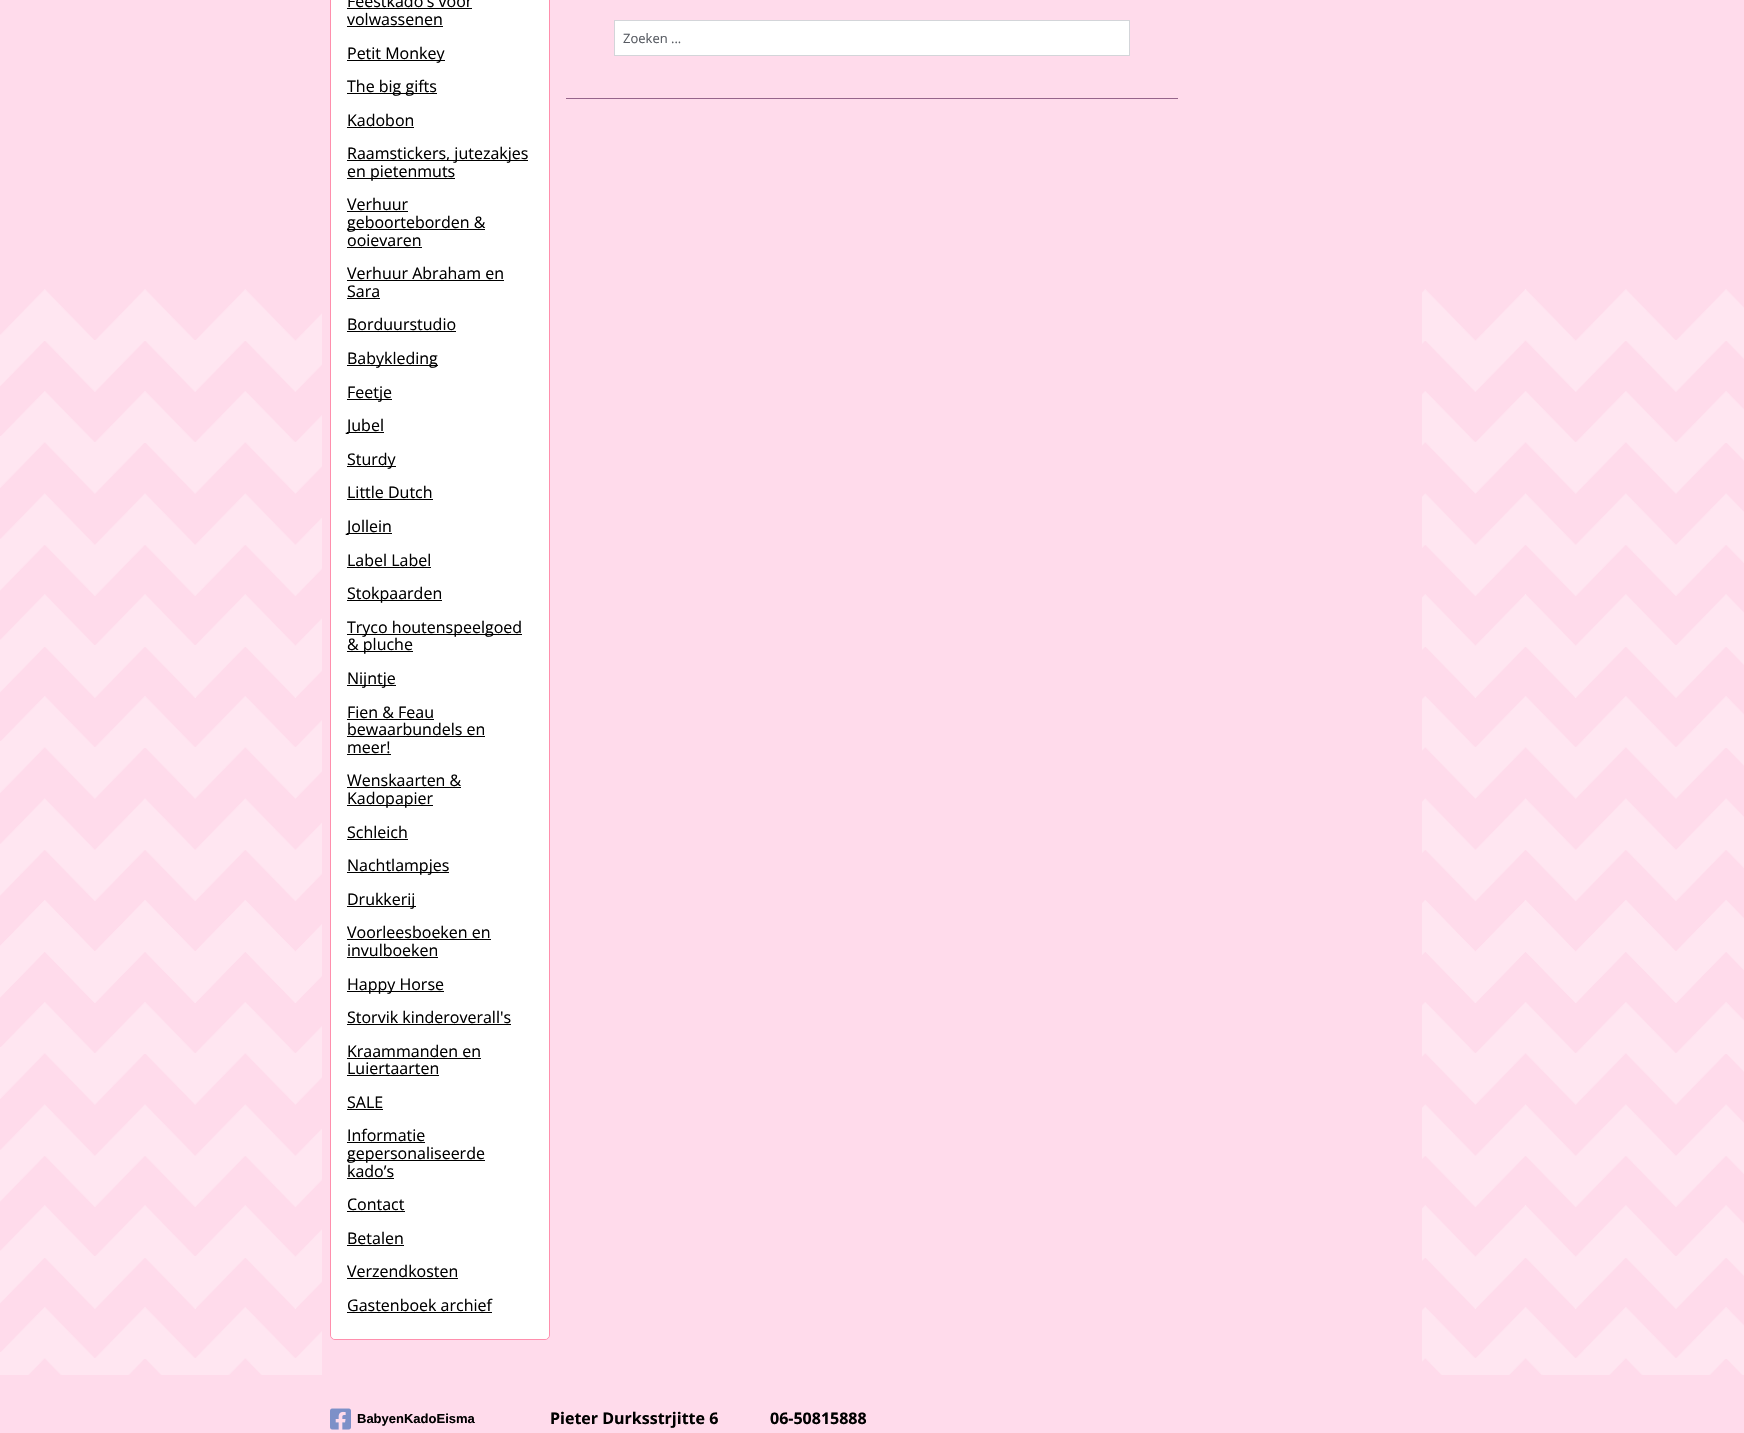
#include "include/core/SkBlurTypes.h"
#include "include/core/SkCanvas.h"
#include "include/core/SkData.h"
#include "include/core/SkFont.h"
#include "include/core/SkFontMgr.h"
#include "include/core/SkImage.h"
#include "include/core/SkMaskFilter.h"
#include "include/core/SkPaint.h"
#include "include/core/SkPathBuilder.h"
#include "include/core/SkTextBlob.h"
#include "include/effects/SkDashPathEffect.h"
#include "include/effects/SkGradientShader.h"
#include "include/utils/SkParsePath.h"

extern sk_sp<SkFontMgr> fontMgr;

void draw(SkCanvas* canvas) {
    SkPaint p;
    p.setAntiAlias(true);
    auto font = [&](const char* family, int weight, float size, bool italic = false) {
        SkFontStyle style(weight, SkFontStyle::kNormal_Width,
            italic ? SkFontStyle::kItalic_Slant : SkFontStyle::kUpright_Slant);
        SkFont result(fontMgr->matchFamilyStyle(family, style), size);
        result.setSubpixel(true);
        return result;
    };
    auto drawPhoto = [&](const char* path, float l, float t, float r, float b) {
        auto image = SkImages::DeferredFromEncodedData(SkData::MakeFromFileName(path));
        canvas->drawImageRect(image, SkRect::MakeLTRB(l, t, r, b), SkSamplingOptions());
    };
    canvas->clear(0xFFFFDBEB);
    drawPhoto("media/1.png", 0, 289, 1744, 1375);
    p.setColor(0xFFFFDBEB);
    canvas->drawRect(SkRect::MakeLTRB(322, 289, 1422, 1375), p);
    p.setStyle(SkPaint::kStroke_Style);
    p.setStrokeWidth(1);
    p.setColor(0xFFFF8FAD);
    canvas->drawRoundRect(SkRect::MakeLTRB(330.5f, -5.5f, 549.5f, 1339.5f), 4.5f, 4.5f, p);
    p.setStyle(SkPaint::kFill_Style);
    p.setColor(0xFFFFFFFF);
    canvas->drawPath(SkPathBuilder().moveTo(331, -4).lineTo(549, -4).lineTo(549, 1335).cubicTo(549, 1337, 547, 1339, 545, 1339).lineTo(335, 1339).cubicTo(333, 1339, 331, 1337, 331, 1335).close().detach(), p);
    auto font1 = font("Open Sans", 400, 16);
    p.setColor(0xFF000000);
    canvas->drawString("Feestkado's voor", 347, 7, font1, p);
    canvas->drawRect(SkRect::MakeLTRB(347, 8, 472, 9), p);
    canvas->drawString("volwassenen", 347, 25, font1, p);
    canvas->drawRect(SkRect::MakeLTRB(347, 26, 443, 27), p);
    canvas->drawRect(SkRect::MakeLTRB(347, 60, 445, 61), p);
    canvas->drawString("Petit Monkey", 347, 59, font1, p);
    canvas->drawRect(SkRect::MakeLTRB(347, 93, 437, 94), p);
    canvas->drawString("The big gifts", 347, 92, font1, p);
    canvas->drawString("Kadobon", 347, 126, font1, p);
    canvas->drawRect(SkRect::MakeLTRB(347, 127, 414, 128), p);
    canvas->drawRect(SkRect::MakeLTRB(347, 160, 528, 161), p);
    canvas->drawString("Raamstickers, jutezakjes", 347, 159, font1, p);
    canvas->drawRect(SkRect::MakeLTRB(347, 178, 455, 179), p);
    canvas->drawString("en pietenmuts", 347, 177, font1, p);
    canvas->drawString("Verhuur", 347, 210, font1, p);
    canvas->drawRect(SkRect::MakeLTRB(347, 211, 408, 212), p);
    canvas->drawRect(SkRect::MakeLTRB(347, 229, 485, 230), p);
    canvas->drawString("geboorteborden &", 347, 228, font1, p);
    canvas->drawString("ooievaren", 347, 246, font1, p);
    canvas->drawRect(SkRect::MakeLTRB(347, 247, 422, 248), p);
    canvas->drawString("Verhuur Abraham en", 347, 279, font1, p);
    canvas->drawRect(SkRect::MakeLTRB(347, 280, 504, 281), p);
    canvas->drawString("Sara", 347, 297, font1, p);
    canvas->drawRect(SkRect::MakeLTRB(347, 298, 380, 299), p);
    canvas->drawString("Borduurstudio", 347, 330, font1, p);
    canvas->drawRect(SkRect::MakeLTRB(347, 331, 456, 332), p);
    canvas->drawRect(SkRect::MakeLTRB(347, 365, 438, 366), p);
    canvas->drawString("Babykleding", 347, 364, font1, p);
    canvas->drawRect(SkRect::MakeLTRB(347, 399, 392, 400), p);
    canvas->drawString("Feetje", 347, 398, font1, p);
    canvas->drawRect(SkRect::MakeLTRB(347, 432, 384, 433), p);
    canvas->drawString("Jubel", 347, 431, font1, p);
    canvas->drawRect(SkRect::MakeLTRB(347, 466, 396, 467), p);
    canvas->drawString("Sturdy", 347, 465, font1, p);
    canvas->drawString("Little Dutch", 347, 498, font1, p);
    canvas->drawRect(SkRect::MakeLTRB(347, 499, 433, 500), p);
    canvas->drawRect(SkRect::MakeLTRB(347, 533, 392, 534), p);
    canvas->drawString("Jollein", 347, 532, font1, p);
    canvas->drawString("Label Label", 347, 566, font1, p);
    canvas->drawRect(SkRect::MakeLTRB(347, 567, 431, 568), p);
    canvas->drawRect(SkRect::MakeLTRB(347, 600, 442, 601), p);
    canvas->drawString("Stokpaarden", 347, 599, font1, p);
    canvas->drawRect(SkRect::MakeLTRB(347, 634, 522, 635), p);
    canvas->drawString("Tryco houtenspeelgoed", 347, 633, font1, p);
    canvas->drawRect(SkRect::MakeLTRB(347, 651, 413, 652), p);
    canvas->drawString("& pluche", 347, 650, font1, p);
    canvas->drawRect(SkRect::MakeLTRB(347, 685, 396, 686), p);
    canvas->drawString("Nijntje", 347, 684, font1, p);
    canvas->drawString("Fien & Feau", 347, 718, font1, p);
    canvas->drawRect(SkRect::MakeLTRB(347, 719, 434, 720), p);
    canvas->drawString("bewaarbundels en", 347, 735, font1, p);
    canvas->drawRect(SkRect::MakeLTRB(347, 736, 485, 737), p);
    canvas->drawString("meer!", 347, 753, font1, p);
    canvas->drawRect(SkRect::MakeLTRB(347, 754, 391, 755), p);
    canvas->drawString("Wenskaarten &", 347, 786, font1, p);
    canvas->drawRect(SkRect::MakeLTRB(347, 787, 461, 788), p);
    canvas->drawRect(SkRect::MakeLTRB(347, 805, 433, 806), p);
    canvas->drawString("Kadopapier", 347, 804, font1, p);
    canvas->drawString("Schleich", 347, 838, font1, p);
    canvas->drawRect(SkRect::MakeLTRB(347, 839, 408, 840), p);
    canvas->drawRect(SkRect::MakeLTRB(347, 872, 449, 873), p);
    canvas->drawString("Nachtlampjes", 347, 871, font1, p);
    canvas->drawRect(SkRect::MakeLTRB(347, 906, 416, 907), p);
    canvas->drawString("Drukkerij", 347, 905, font1, p);
    canvas->drawString("Voorleesboeken en", 347, 938, font1, p);
    canvas->drawRect(SkRect::MakeLTRB(347, 939, 491, 940), p);
    canvas->drawString("invulboeken", 347, 956, font1, p);
    canvas->drawRect(SkRect::MakeLTRB(347, 957, 438, 958), p);
    canvas->drawRect(SkRect::MakeLTRB(347, 991, 444, 992), p);
    canvas->drawString("Happy Horse", 347, 990, font1, p);
    canvas->drawString("Storvik kinderoverall's", 347, 1023, font1, p);
    canvas->drawRect(SkRect::MakeLTRB(347, 1024, 511, 1025), p);
    canvas->drawString("Kraammanden en", 347, 1057, font1, p);
    canvas->drawRect(SkRect::MakeLTRB(347, 1058, 481, 1059), p);
    canvas->drawString("Luiertaarten", 347, 1074, font1, p);
    canvas->drawRect(SkRect::MakeLTRB(347, 1075, 439, 1076), p);
    canvas->drawString("SALE", 347, 1108, font1, p);
    canvas->drawRect(SkRect::MakeLTRB(347, 1109, 383, 1110), p);
    canvas->drawString("Informatie", 347, 1141, font1, p);
    canvas->drawRect(SkRect::MakeLTRB(347, 1142, 425, 1143), p);
    canvas->drawRect(SkRect::MakeLTRB(347, 1160, 485, 1161), p);
    canvas->drawString("gepersonaliseerde", 347, 1159, font1, p);
    canvas->drawString("kado’s", 347, 1177, font1, p);
    canvas->drawRect(SkRect::MakeLTRB(347, 1178, 394, 1179), p);
    canvas->drawString("Contact", 347, 1210, font1, p);
    canvas->drawRect(SkRect::MakeLTRB(347, 1211, 405, 1212), p);
    canvas->drawString("Betalen", 347, 1244, font1, p);
    canvas->drawRect(SkRect::MakeLTRB(347, 1245, 404, 1246), p);
    canvas->drawString("Verzendkosten", 347, 1277, font1, p);
    canvas->drawRect(SkRect::MakeLTRB(347, 1278, 458, 1279), p);
    canvas->drawString("Gastenboek archief", 347, 1311, font1, p);
    canvas->drawRect(SkRect::MakeLTRB(347, 1312, 492, 1313), p);
    p.setColor(0xFF96658B);
    canvas->drawRect(SkRect::MakeLTRB(566, 98, 1178, 99), p);
    p.setColor(0xFFFFFFFF);
    canvas->drawRect(SkRect::MakeLTRB(614.5f, 20.5f, 1129.5f, 55.5f), p);
    p.setStyle(SkPaint::kStroke_Style);
    p.setColor(0xFFD3D5D9);
    canvas->drawRect(SkRect::MakeLTRB(614.5f, 20.5f, 1129.5f, 55.5f), p);
    auto font2 = font("Open Sans", 400, 13);
    p.setStyle(SkPaint::kFill_Style);
    p.setColor(0xFF575B62);
    canvas->drawString("Zoeken ...", 623, 43, font2, p);
    drawPhoto("media/2.png", 330, 1408, 351, 1430);
    auto font3 = font("Liberation Sans", 700, 13);
    p.setColor(0xFF000000);
    canvas->drawString("BabyenKadoEisma", 357, 1423, font3, p);
    auto font4 = font("Open Sans", 700, 16);
    canvas->drawString("Pieter Durksstrjitte 6", 550, 1424, font4, p);
    canvas->drawString("06-50815888", 770, 1424, font4, p);
}
